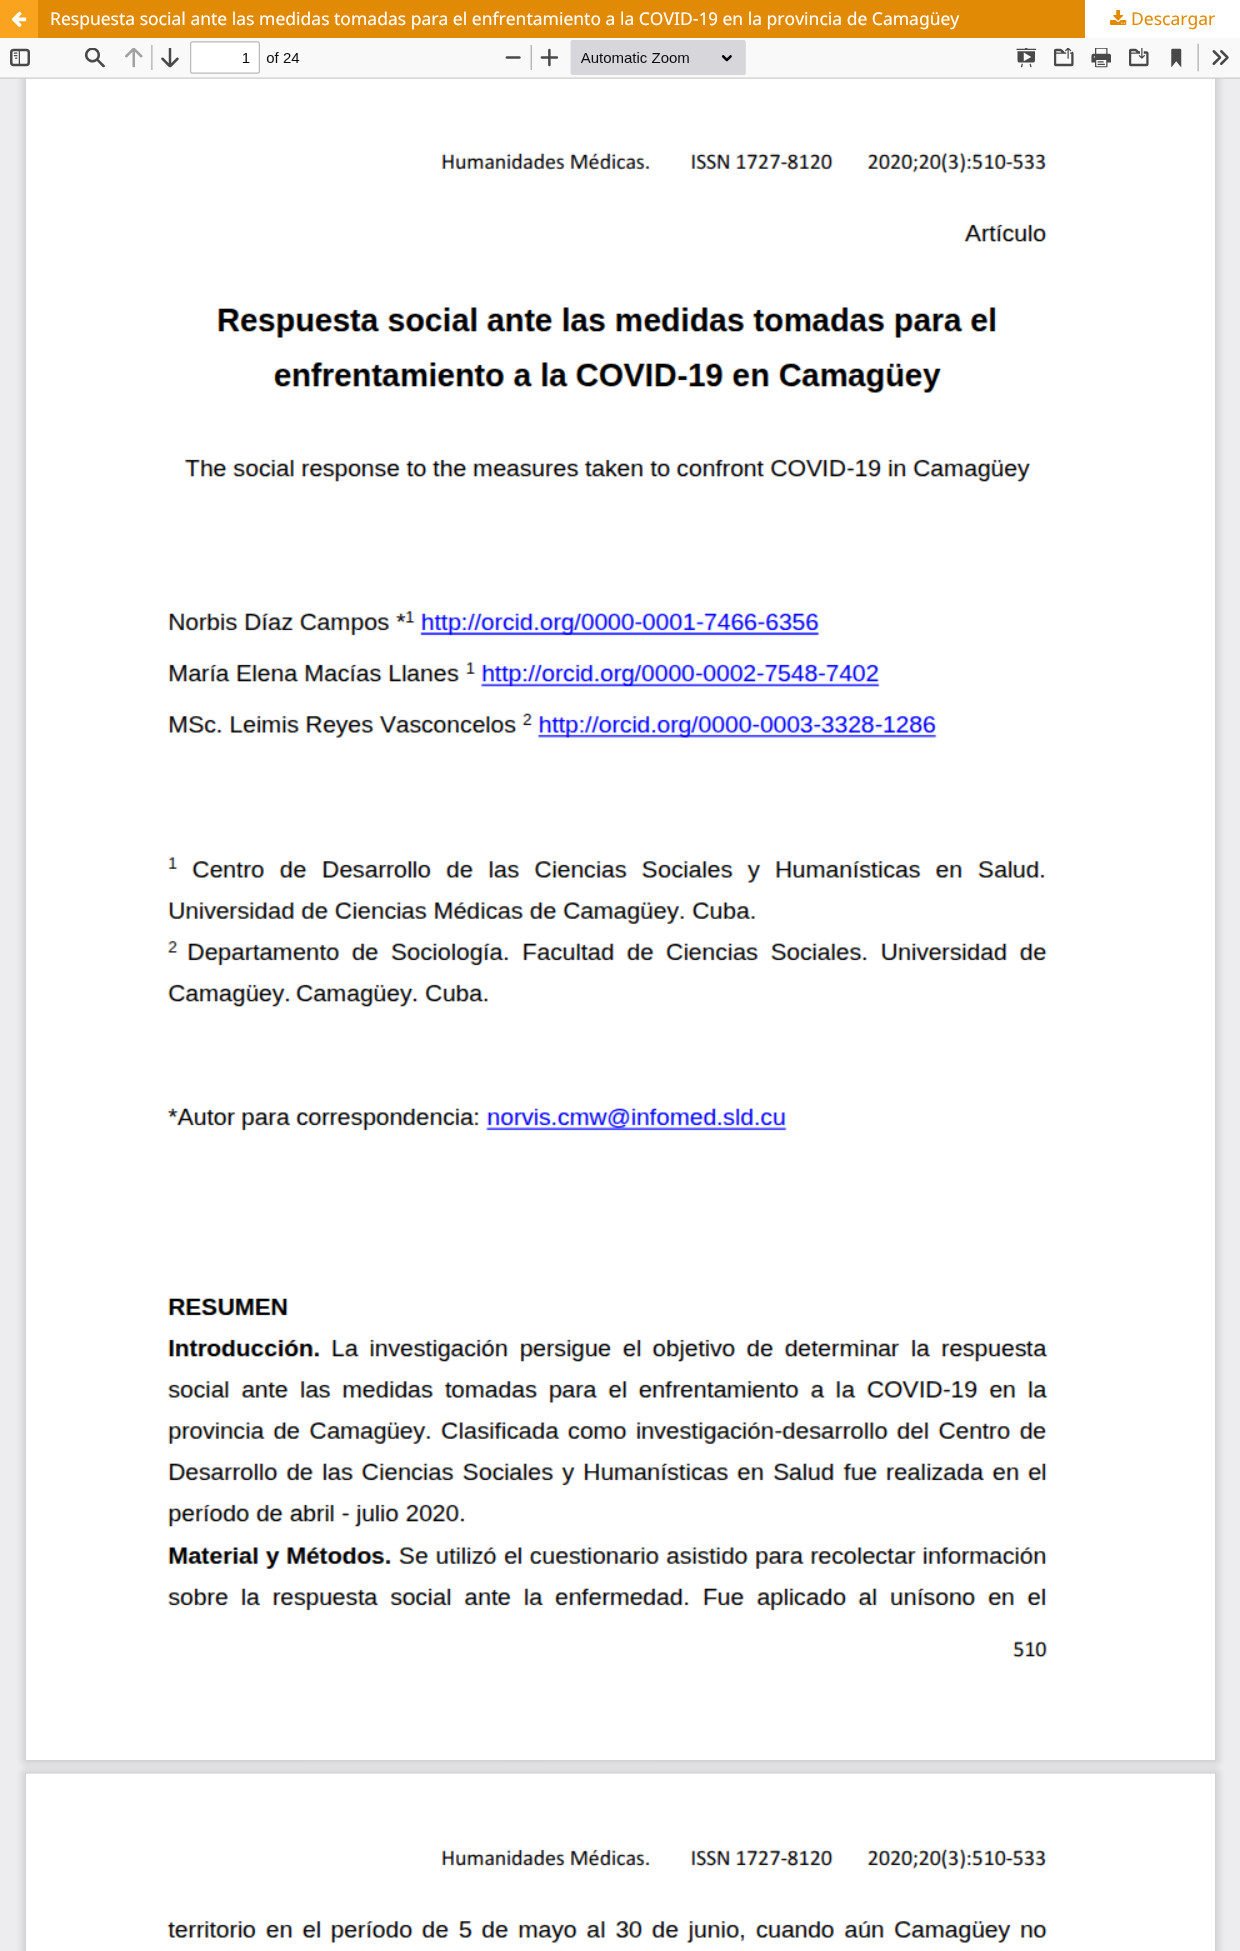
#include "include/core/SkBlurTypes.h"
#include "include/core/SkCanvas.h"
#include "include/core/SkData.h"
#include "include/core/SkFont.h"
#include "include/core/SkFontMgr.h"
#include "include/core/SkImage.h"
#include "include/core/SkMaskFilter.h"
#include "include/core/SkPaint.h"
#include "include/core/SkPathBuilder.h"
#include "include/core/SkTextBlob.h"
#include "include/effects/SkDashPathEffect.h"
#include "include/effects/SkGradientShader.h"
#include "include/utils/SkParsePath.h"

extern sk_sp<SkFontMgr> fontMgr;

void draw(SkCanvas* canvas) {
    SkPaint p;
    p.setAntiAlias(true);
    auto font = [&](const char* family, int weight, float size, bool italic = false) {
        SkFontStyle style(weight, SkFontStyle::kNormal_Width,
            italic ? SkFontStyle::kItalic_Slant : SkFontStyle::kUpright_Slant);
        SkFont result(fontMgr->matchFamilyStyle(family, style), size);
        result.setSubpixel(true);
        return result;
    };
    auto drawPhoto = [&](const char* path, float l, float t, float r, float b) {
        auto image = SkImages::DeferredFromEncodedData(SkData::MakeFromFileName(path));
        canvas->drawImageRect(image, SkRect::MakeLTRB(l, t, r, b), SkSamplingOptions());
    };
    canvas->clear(0xFFFFFFFF);
    p.setColor(0xFFE18A05);
    canvas->drawRect(SkRect::MakeLTRB(38, 0, 1085, 38), p);
    p.setColor(0xFFFAA31F);
    canvas->drawRect(SkRect::MakeLTRB(0, 0, 38, 38), p);
    drawPhoto("media/1.png", 11, 11, 27, 27);
    auto font1 = font("Noto Sans", 400, 17.5f);
    p.setColor(0xFFFFFFFF);
    canvas->drawString("Respuesta social ante las medidas tomadas para el enfrentamiento a la COVID-19 en la provincia de Camagüey", 50, 25, font1, p);
    drawPhoto("media/2.png", 1110, 10, 1127, 25);
    p.setColor(0xFFE18A05);
    canvas->drawString("Descargar", 1131, 25, font1, p);
    drawPhoto("media/3.png", 0, 38, 1240, 1951);
}
